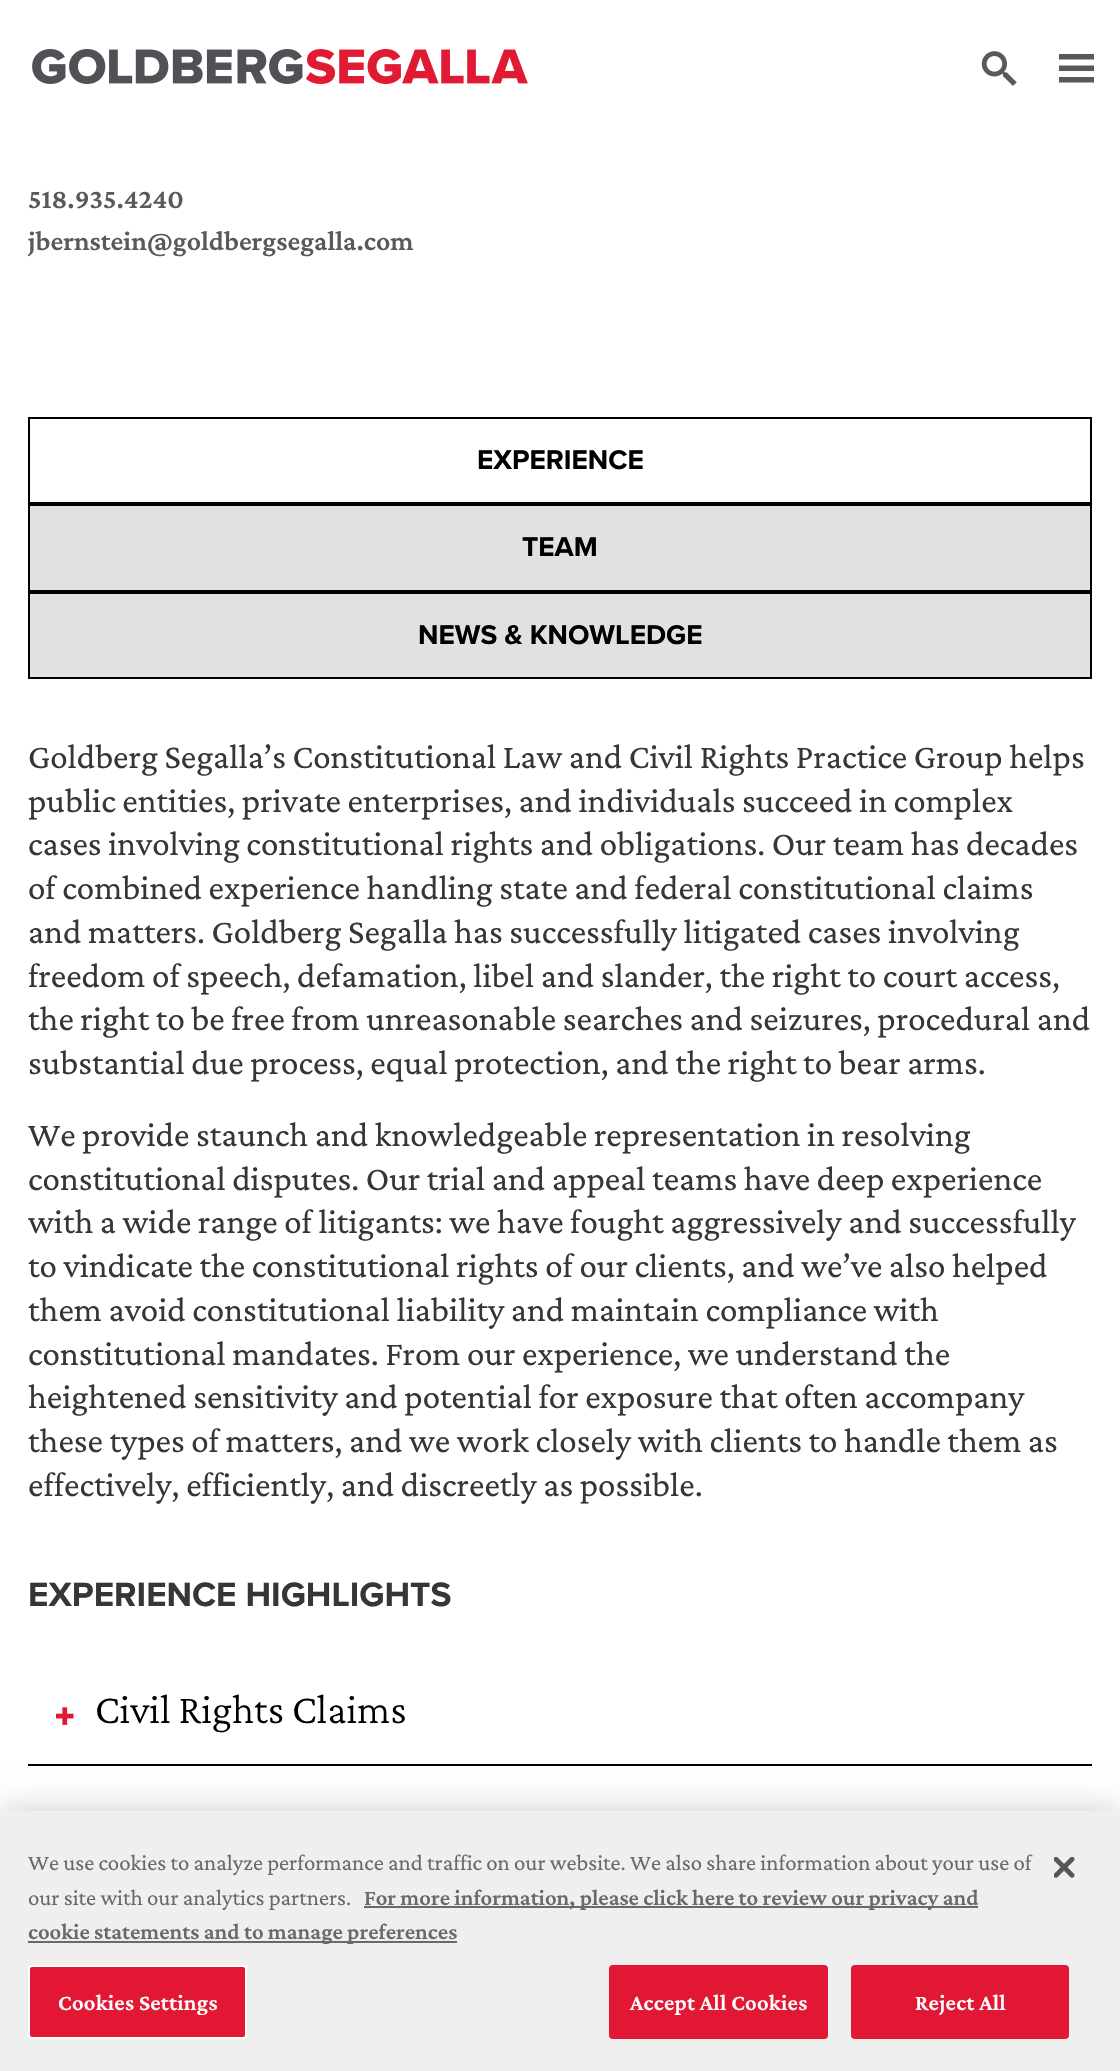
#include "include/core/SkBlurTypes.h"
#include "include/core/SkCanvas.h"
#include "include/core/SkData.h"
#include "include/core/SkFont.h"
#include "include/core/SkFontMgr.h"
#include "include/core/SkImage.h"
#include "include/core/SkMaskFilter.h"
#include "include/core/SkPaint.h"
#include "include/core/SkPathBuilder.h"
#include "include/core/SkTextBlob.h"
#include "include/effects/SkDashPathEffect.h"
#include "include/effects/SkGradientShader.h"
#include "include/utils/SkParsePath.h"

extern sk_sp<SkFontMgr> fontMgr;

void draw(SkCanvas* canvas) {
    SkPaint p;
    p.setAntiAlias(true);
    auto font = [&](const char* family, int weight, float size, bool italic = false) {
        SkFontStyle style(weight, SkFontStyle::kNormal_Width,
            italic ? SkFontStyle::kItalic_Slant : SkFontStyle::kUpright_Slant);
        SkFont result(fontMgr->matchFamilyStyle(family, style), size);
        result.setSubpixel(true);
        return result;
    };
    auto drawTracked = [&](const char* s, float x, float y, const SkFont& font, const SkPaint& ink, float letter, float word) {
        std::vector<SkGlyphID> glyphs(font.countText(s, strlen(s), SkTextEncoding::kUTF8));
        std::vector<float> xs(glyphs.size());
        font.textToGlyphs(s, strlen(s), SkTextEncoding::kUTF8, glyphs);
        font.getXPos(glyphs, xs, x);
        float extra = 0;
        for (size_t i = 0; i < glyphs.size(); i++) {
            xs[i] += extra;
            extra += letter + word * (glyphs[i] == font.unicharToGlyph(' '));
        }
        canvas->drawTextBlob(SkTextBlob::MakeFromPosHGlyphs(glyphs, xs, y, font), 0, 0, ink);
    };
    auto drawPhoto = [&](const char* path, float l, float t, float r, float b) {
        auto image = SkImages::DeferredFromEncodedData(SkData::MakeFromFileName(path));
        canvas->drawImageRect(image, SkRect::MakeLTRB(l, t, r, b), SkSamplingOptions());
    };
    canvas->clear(0xFFFFFFFF);
    drawPhoto("media/1.png", 32, 49, 528, 84);
    drawPhoto("media/2.png", 981, 51, 1017, 86);
    p.setColor(0xFF58595B);
    canvas->drawPath(SkPathBuilder().moveTo(1059, 54).lineTo(1094, 54).lineTo(1094, 59.5f).lineTo(1059, 59.5f).close().moveTo(1059, 65.5f).lineTo(1094, 65.5f).lineTo(1094, 71).lineTo(1059, 71).close().moveTo(1059, 77).lineTo(1094, 77).lineTo(1094, 82.5f).lineTo(1059, 82.5f).close().detach(), p);
    auto font1 = font("Crimson Pro", 600, 28);
    canvas->drawString("518.935.4240", 28, 208, font1, p);
    canvas->drawString("jbernstein@goldbergsegalla.com", 28, 250, font1, p);
    p.setStyle(SkPaint::kStroke_Style);
    p.setStrokeWidth(2);
    p.setColor(0xFF000000);
    canvas->drawRect(SkRect::MakeLTRB(29, 418, 1091, 503), p);
    auto font2 = font("Proxima Nova", 700, 28);
    p.setStyle(SkPaint::kFill_Style);
    canvas->drawString("EXPERIENCE", 477, 469, font2, p);
    p.setColor(0xFFE0E2E1);
    canvas->drawRect(SkRect::MakeLTRB(29, 505, 1091, 591), p);
    p.setStyle(SkPaint::kStroke_Style);
    p.setColor(0xFF000000);
    canvas->drawRect(SkRect::MakeLTRB(29, 505, 1091, 591), p);
    p.setStyle(SkPaint::kFill_Style);
    canvas->drawString("TEAM", 522, 556, font2, p);
    p.setColor(0xFFE0E2E1);
    canvas->drawRect(SkRect::MakeLTRB(29, 593, 1091, 678), p);
    p.setStyle(SkPaint::kStroke_Style);
    p.setColor(0xFF000000);
    canvas->drawRect(SkRect::MakeLTRB(29, 593, 1091, 678), p);
    p.setStyle(SkPaint::kFill_Style);
    canvas->drawString("NEWS & KNOWLEDGE", 418, 644, font2, p);
    auto font3 = font("Crimson Pro", 400, 35);
    p.setColor(0xFF363636);
    {
        const struct { const char* s; float x, y; } items[] = {
            {"Goldberg Segalla’s Constitutional Law and Civil Rights Practice Group helps", 28, 768},
            {"public entities, private enterprises, and individuals succeed in complex", 28, 812},
            {"cases involving constitutional rights and obligations. Our team has decades", 28, 855},
            {"of combined experience handling state and federal constitutional claims", 28, 899},
            {"and matters. Goldberg Segalla has successfully litigated cases involving", 28, 943},
            {"freedom of speech, defamation, libel and slander, the right to court access,", 28, 987},
            {"the right to be free from unreasonable searches and seizures, procedural and", 28, 1030},
            {"substantial due process, equal protection, and the right to bear arms.", 28, 1074},
            {"We provide staunch and knowledgeable representation in resolving", 28, 1146},
            {"constitutional disputes. Our trial and appeal teams have deep experience", 28, 1190},
            {"with a wide range of litigants: we have fought aggressively and successfully", 28, 1233},
            {"to vindicate the constitutional rights of our clients, and we’ve also helped", 28, 1277},
            {"them avoid constitutional liability and maintain compliance with", 28, 1321},
            {"constitutional mandates. From our experience, we understand the", 28, 1365},
            {"heightened sensitivity and potential for exposure that often accompany", 28, 1408},
            {"these types of matters, and we work closely with clients to handle them as", 28, 1452},
            {"effectively, efficiently, and discreetly as possible.", 28, 1496},
        };
        for (auto [s, x, y] : items) {
            canvas->drawString(s, x, y, font3, p);
        }
    }
    auto font4 = font("Proxima Nova", 700, 35);
    canvas->drawString("EXPERIENCE HIGHLIGHTS", 28, 1606, font4, p);
    p.setColor(0xFF000000);
    canvas->drawRect(SkRect::MakeLTRB(28, 1764, 1092, 1766), p);
    drawPhoto("media/3.png", 56, 1707, 74, 1725);
    auto font5 = font("Crimson Pro", 300, 42);
    canvas->drawString("Civil Rights Claims", 95, 1723, font5, p);
    p.setColor(0x33000000);
    p.setMaskFilter(SkMaskFilter::MakeBlur(kNormal_SkBlurStyle, 16));
    canvas->drawRect(SkRect::MakeLTRB(0, 1811, 1120, 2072), p);
    p.setMaskFilter(nullptr);
    p.setColor(0xFFEFEFEF);
    canvas->drawRect(SkRect::MakeLTRB(0, 1811, 1120, 2071), p);
    auto font6 = font("Crimson Pro", 400, 22.75f);
    p.setColor(0xFF696969);
    canvas->drawString("We use cookies to analyze performance and traffic on our website. We also share information about your use of", 28, 1870, font6, p);
    canvas->drawString("our site with our analytics partners.", 28, 1905, font6, p);
    canvas->drawRect(SkRect::MakeLTRB(364, 1906, 978, 1908), p);
    auto font7 = font("Crimson Pro", 600, 22.75f);
    canvas->drawString("For more information, please click here to review our privacy and", 364, 1905, font7, p);
    canvas->drawRect(SkRect::MakeLTRB(28, 1941, 457, 1943), p);
    canvas->drawString("cookie statements and to manage preferences", 28, 1939, font7, p);
    p.setColor(0xFFE11733);
    canvas->drawRoundRect(SkRect::MakeLTRB(29, 1966, 246, 2038), 3, 3, p);
    p.setStyle(SkPaint::kStroke_Style);
    p.setColor(0xFFFFFFFF);
    canvas->drawRoundRect(SkRect::MakeLTRB(29, 1966, 246, 2038), 3, 3, p);
    p.setStyle(SkPaint::kFill_Style);
    drawTracked("Cookies Settings", 58, 2010, font7, p, 0.25f, 0);
    p.setColor(0xFFE11733);
    canvas->drawRoundRect(SkRect::MakeLTRB(610, 1966, 827, 2038), 3, 3, p);
    p.setStyle(SkPaint::kStroke_Style);
    canvas->drawRoundRect(SkRect::MakeLTRB(610, 1966, 827, 2038), 3, 3, p);
    p.setStyle(SkPaint::kFill_Style);
    p.setColor(0xFFFFFFFF);
    drawTracked("Accept All Cookies", 630, 2010, font7, p, 0.25f, 0);
    p.setColor(0xFFE11733);
    canvas->drawRoundRect(SkRect::MakeLTRB(852, 1966, 1068, 2038), 3, 3, p);
    p.setStyle(SkPaint::kStroke_Style);
    canvas->drawRoundRect(SkRect::MakeLTRB(852, 1966, 1068, 2038), 3, 3, p);
    p.setStyle(SkPaint::kFill_Style);
    p.setColor(0xFFFFFFFF);
    drawTracked("Reject All", 915, 2010, font7, p, 0.25f, 0);
    drawPhoto("media/4.png", 1054, 1857, 1075, 1878);
}
